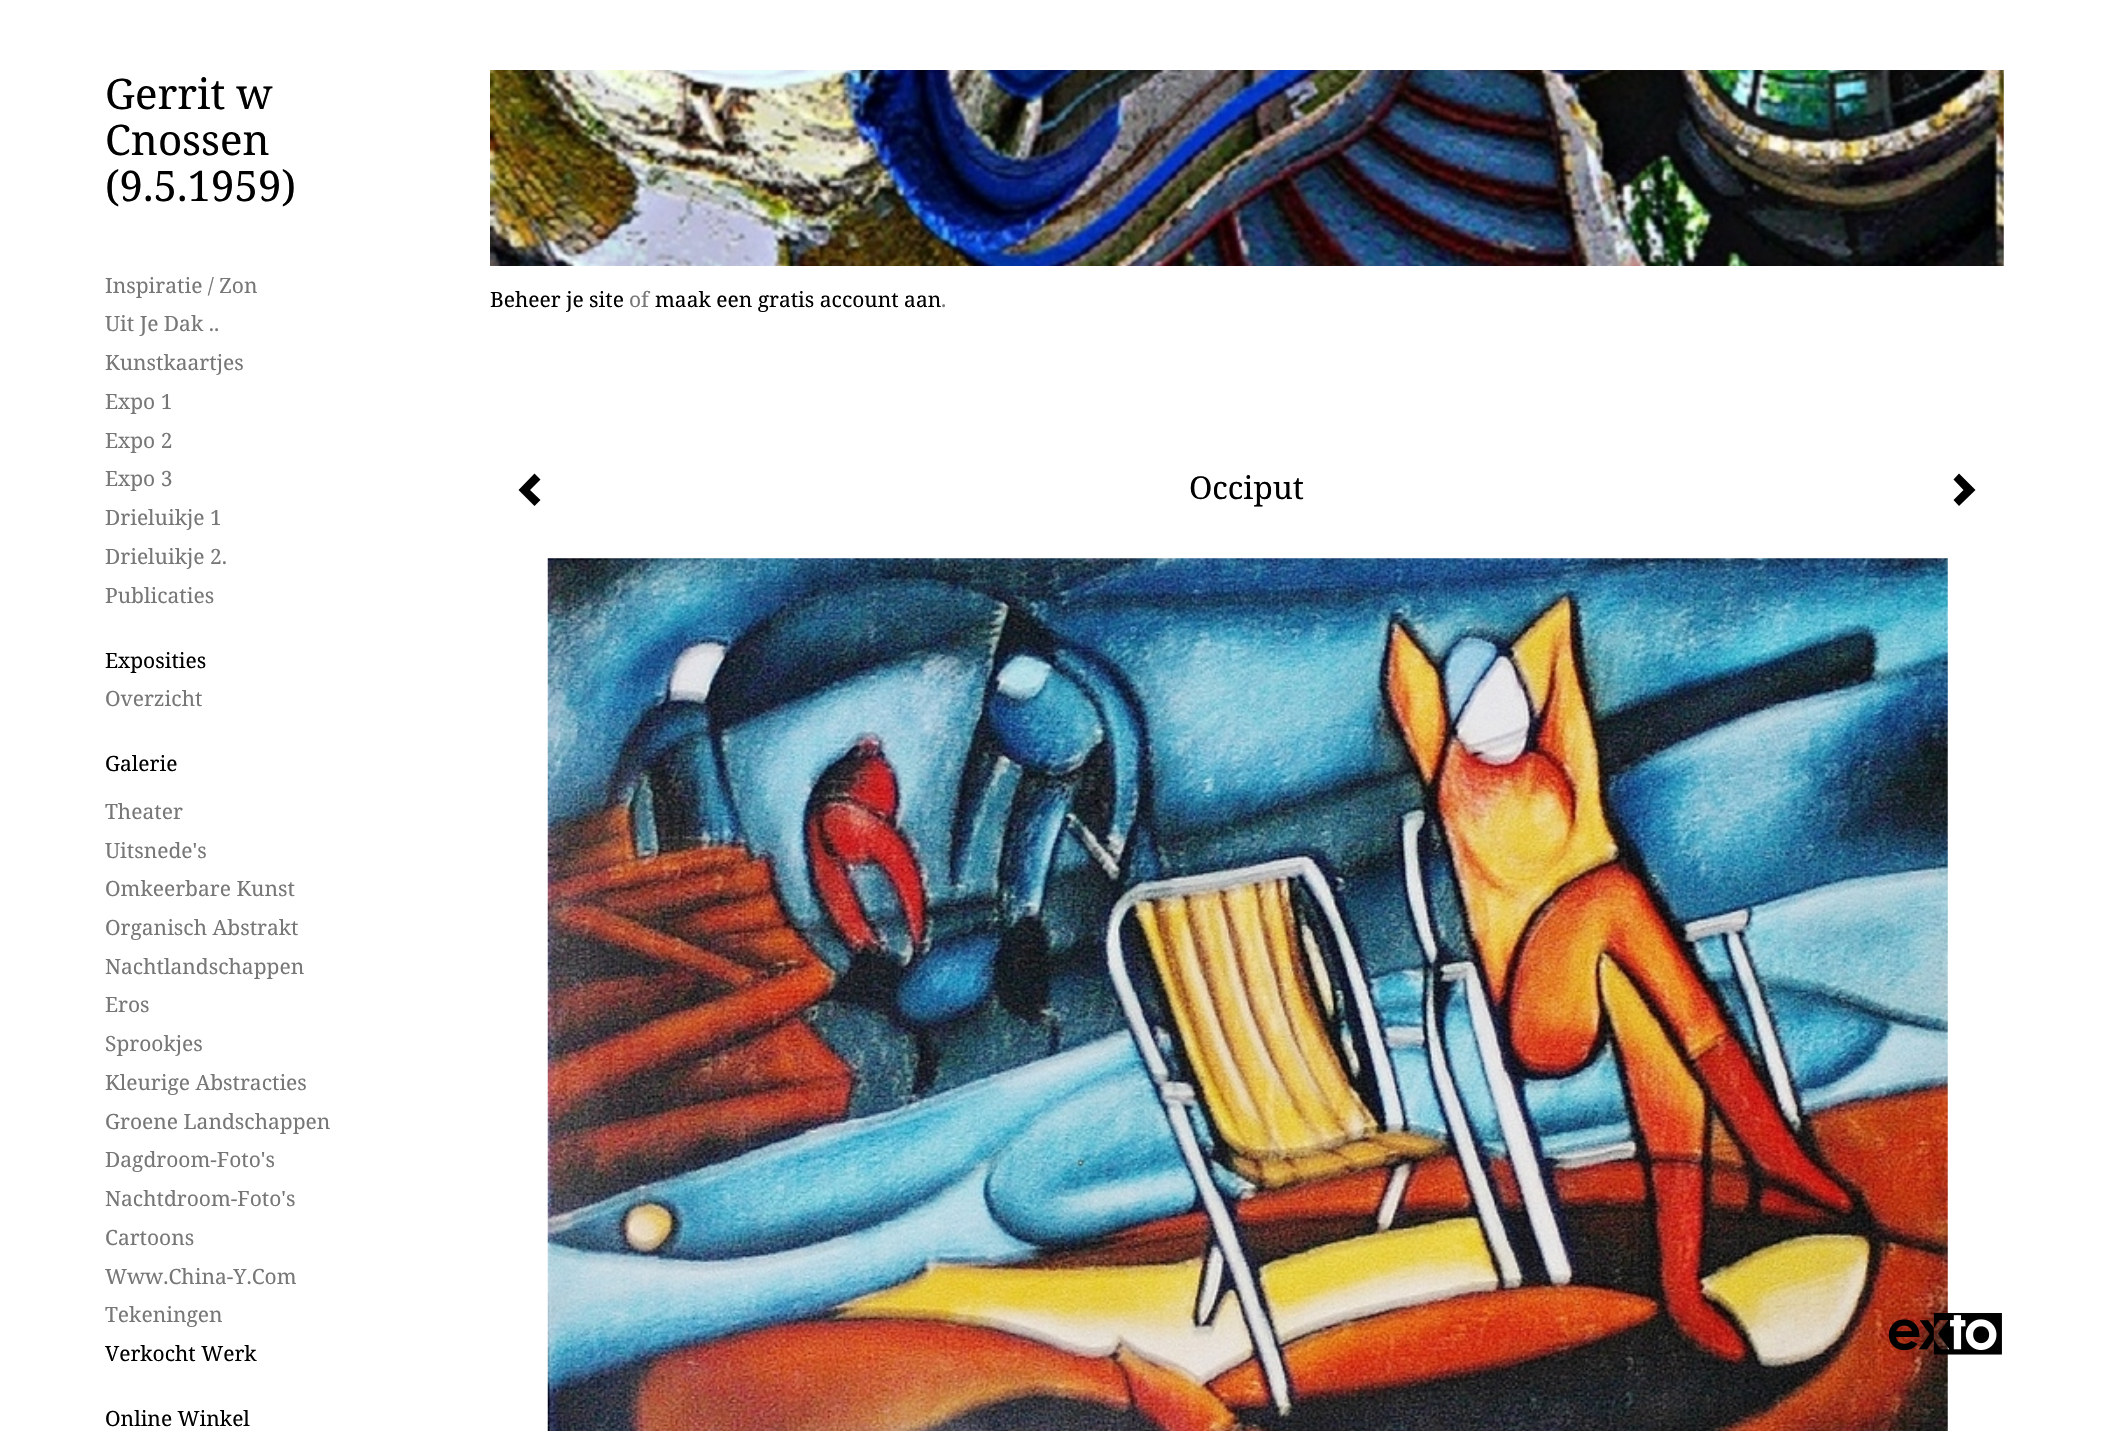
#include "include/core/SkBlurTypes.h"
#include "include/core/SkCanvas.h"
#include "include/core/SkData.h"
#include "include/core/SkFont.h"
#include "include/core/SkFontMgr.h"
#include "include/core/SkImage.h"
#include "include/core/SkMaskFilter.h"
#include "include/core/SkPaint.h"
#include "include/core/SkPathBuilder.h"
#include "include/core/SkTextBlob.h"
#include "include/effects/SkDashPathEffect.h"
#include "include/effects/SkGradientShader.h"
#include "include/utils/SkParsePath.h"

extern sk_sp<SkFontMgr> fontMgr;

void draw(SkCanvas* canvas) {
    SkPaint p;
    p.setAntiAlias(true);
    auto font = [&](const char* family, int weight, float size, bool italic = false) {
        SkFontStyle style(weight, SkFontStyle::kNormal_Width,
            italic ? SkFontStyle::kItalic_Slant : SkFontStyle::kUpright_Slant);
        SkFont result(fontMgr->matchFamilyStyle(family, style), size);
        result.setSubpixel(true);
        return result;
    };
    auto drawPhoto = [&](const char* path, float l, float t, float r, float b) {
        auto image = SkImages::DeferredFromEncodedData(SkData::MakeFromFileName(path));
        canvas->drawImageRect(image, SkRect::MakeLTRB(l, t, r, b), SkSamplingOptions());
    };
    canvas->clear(0xFFFFFFFF);
    auto font1 = font("Noto Serif", 400, 42);
    p.setColor(0xFF000000);
    {
        const struct { const char* s; float x, y; } items[] = {
            {"Gerrit w", 105, 109},
            {"Cnossen", 105, 155},
            {"(9.5.1959)", 105, 201},
        };
        for (auto [s, x, y] : items) {
            canvas->drawString(s, x, y, font1, p);
        }
    }
    auto font2 = font("Noto Serif", 400, 21);
    p.setColor(0xFF777777);
    {
        const struct { const char* s; float x, y; } items[] = {
            {"Inspiratie / Zon", 105, 293},
            {"Uit Je Dak ..", 105, 331},
            {"Kunstkaartjes", 105, 370},
            {"Expo 1", 105, 409},
            {"Expo 2", 105, 448},
            {"Expo 3", 105, 486},
            {"Drieluikje 1", 105, 525},
            {"Drieluikje 2.", 105, 564},
            {"Publicaties", 105, 603},
        };
        for (auto [s, x, y] : items) {
            canvas->drawString(s, x, y, font2, p);
        }
    }
    p.setColor(0xFF000000);
    canvas->drawString("Exposities", 105, 668, font2, p);
    p.setColor(0xFF777777);
    canvas->drawString("Overzicht", 105, 706, font2, p);
    p.setColor(0xFF000000);
    canvas->drawString("Galerie", 105, 771, font2, p);
    p.setColor(0xFF777777);
    {
        const struct { const char* s; float x, y; } items[] = {
            {"Theater", 105, 819},
            {"Uitsnede's", 105, 858},
            {"Omkeerbare Kunst", 105, 896},
            {"Organisch Abstrakt", 105, 935},
            {"Nachtlandschappen", 105, 974},
            {"Eros", 105, 1012},
            {"Sprookjes", 105, 1051},
            {"Kleurige Abstracties", 105, 1090},
            {"Groene Landschappen", 105, 1129},
            {"Dagdroom-Foto's", 105, 1167},
            {"Nachtdroom-Foto's", 105, 1206},
            {"Cartoons", 105, 1245},
            {"Www.China-Y.Com", 105, 1284},
            {"Tekeningen", 105, 1322},
        };
        for (auto [s, x, y] : items) {
            canvas->drawString(s, x, y, font2, p);
        }
    }
    p.setColor(0xFF000000);
    canvas->drawString("Verkocht Werk", 105, 1361, font2, p);
    canvas->drawString("Online Winkel", 105, 1426, font2, p);
    canvas->drawPath(SkPathBuilder().moveTo(540.5f, 479.5f).lineTo(530, 490).lineTo(540.5f, 500).lineTo(534.5f, 506).lineTo(518.5f, 490).lineTo(534.5f, 473.5f).close().detach(), p);
    auto font3 = font("Noto Serif", 400, 31.5f);
    canvas->drawString("Occiput", 1189, 499, font3, p);
    canvas->drawPath(SkPathBuilder().moveTo(1975.5f, 490).lineTo(1959, 506).lineTo(1953.5f, 500).lineTo(1963.5f, 490).lineTo(1953.5f, 479.5f).lineTo(1959, 473.5f).close().detach(), p);
    drawPhoto("media/1.png", 547, 558, 1948, 1431);
    drawPhoto("media/2.png", 490, 70, 2004, 266);
    canvas->drawString("Beheer je site", 490, 307, font2, p);
    p.setColor(0xFF777777);
    canvas->drawString("of", 629, 307, font2, p);
    p.setColor(0xFF000000);
    canvas->drawString("maak een gratis account aan", 655, 307, font2, p);
    p.setColor(0xFF777777);
    canvas->drawString(".", 941, 307, font2, p);
    drawPhoto("media/3.png", 1888, 1313, 2002, 1355);
}
